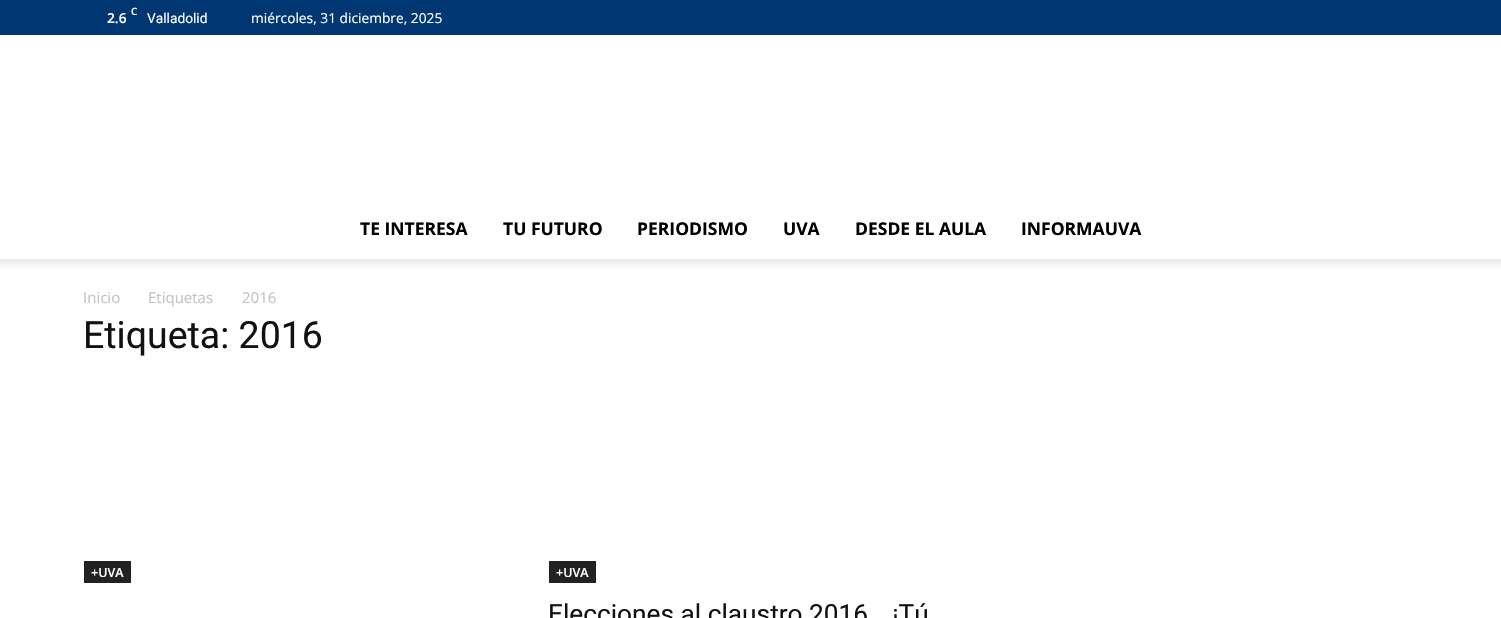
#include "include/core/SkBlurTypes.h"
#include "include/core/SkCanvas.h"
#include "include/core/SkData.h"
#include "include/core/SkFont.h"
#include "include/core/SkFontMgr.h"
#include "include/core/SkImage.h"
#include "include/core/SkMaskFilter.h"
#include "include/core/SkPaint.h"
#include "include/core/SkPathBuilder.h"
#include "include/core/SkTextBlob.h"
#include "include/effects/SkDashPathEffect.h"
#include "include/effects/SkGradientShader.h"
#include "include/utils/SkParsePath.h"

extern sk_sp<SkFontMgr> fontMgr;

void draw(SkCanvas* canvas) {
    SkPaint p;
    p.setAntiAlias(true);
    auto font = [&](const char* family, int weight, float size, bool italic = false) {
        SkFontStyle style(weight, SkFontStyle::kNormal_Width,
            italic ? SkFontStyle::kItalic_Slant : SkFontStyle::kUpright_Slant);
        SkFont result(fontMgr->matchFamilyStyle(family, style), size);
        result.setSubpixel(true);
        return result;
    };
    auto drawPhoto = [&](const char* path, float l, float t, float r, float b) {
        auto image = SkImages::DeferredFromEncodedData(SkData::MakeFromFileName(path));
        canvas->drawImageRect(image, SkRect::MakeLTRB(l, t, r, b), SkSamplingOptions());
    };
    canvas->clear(0xFFFFFFFF);
    p.setColor(0xFF003772);
    canvas->drawRect(SkRect::MakeLTRB(0, 0, 1501, 35), p);
    auto font1 = font("Open Sans", 600, 10);
    p.setColor(0xFFFFFFFF);
    canvas->drawString("C", 131, 15, font1, p);
    auto font2 = font("Open Sans", 600, 13.75f);
    canvas->drawString("2.6", 107, 23, font2, p);
    auto font3 = font("Roboto", 400, 13.75f);
    canvas->drawString("Valladolid", 147, 23, font3, p);
    auto font4 = font("Open Sans", 400, 13.75f);
    canvas->drawString("miércoles, 31 diciembre, 2025", 251, 23, font4, p);
    auto font5 = font("Open Sans", 700, 17.5f);
    p.setColor(0xFF000000);
    {
        const struct { const char* s; float x, y; } items[] = {
            {"TE INTERESA", 360, 235},
            {"TU FUTURO", 503, 235},
            {"PERIODISMO", 637, 235},
            {"UVA", 783, 235},
            {"DESDE EL AULA", 855, 235},
            {"INFORMAUVA", 1021, 235},
        };
        for (auto [s, x, y] : items) {
            canvas->drawString(s, x, y, font5, p);
        }
    }
    drawPhoto("media/1.png", 0, 259, 1501, 269);
    auto font6 = font("Open Sans", 400, 15);
    p.setColor(0xFFC3C3C3);
    {
        const struct { const char* s; float x, y; } items[] = {
            {"Inicio", 83, 303},
            {"Etiquetas", 148, 303},
            {"2016", 242, 303},
        };
        for (auto [s, x, y] : items) {
            canvas->drawString(s, x, y, font6, p);
        }
    }
    auto font7 = font("Roboto", 400, 37.5f);
    p.setColor(0xFF111111);
    canvas->drawString("Etiqueta: 2016", 83, 348, font7, p);
    p.setColor(0xFF222222);
    canvas->drawRect(SkRect::MakeLTRB(84, 561, 131, 583), p);
    auto font8 = font("Open Sans", 600, 12.5f);
    p.setColor(0xFFFFFFFF);
    canvas->drawString("+UVA", 91, 577, font8, p);
    p.setColor(0xFF222222);
    canvas->drawRect(SkRect::MakeLTRB(549, 561, 596, 583), p);
    p.setColor(0xFFFFFFFF);
    canvas->drawString("+UVA", 556, 577, font8, p);
    auto font9 = font("Roboto", 400, 26.25f);
    p.setColor(0xFF111111);
    canvas->drawString("Elecciones al claustro 2016… ¡Tú", 548, 623, font9, p);
}
